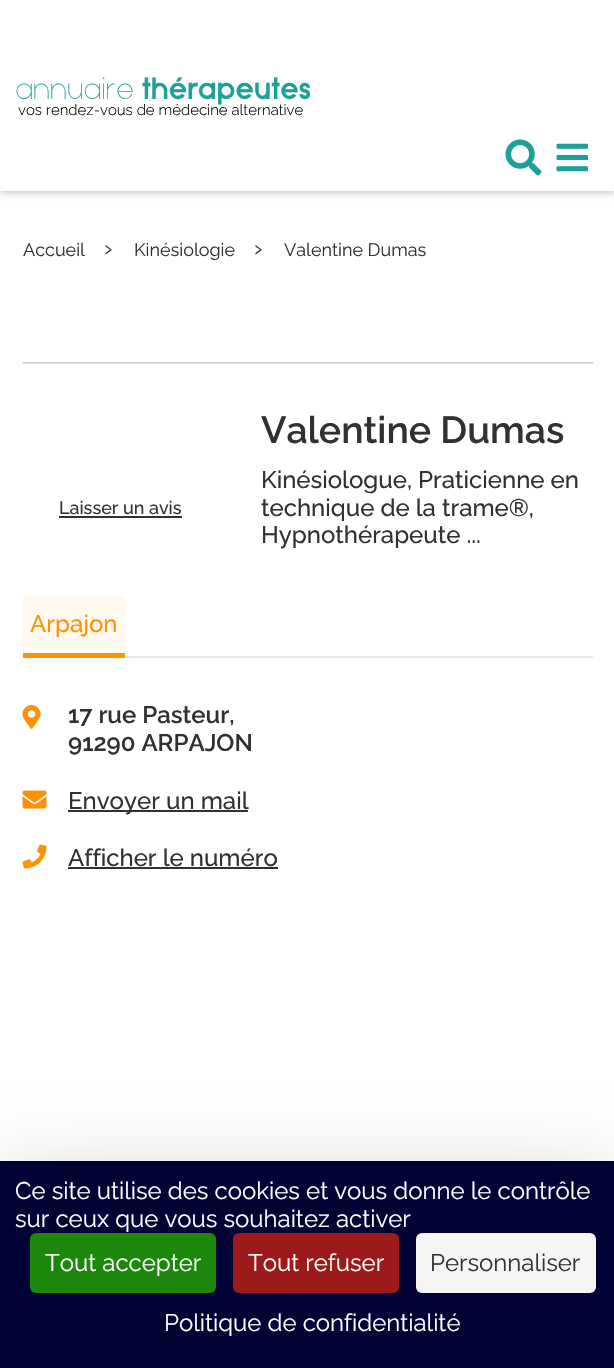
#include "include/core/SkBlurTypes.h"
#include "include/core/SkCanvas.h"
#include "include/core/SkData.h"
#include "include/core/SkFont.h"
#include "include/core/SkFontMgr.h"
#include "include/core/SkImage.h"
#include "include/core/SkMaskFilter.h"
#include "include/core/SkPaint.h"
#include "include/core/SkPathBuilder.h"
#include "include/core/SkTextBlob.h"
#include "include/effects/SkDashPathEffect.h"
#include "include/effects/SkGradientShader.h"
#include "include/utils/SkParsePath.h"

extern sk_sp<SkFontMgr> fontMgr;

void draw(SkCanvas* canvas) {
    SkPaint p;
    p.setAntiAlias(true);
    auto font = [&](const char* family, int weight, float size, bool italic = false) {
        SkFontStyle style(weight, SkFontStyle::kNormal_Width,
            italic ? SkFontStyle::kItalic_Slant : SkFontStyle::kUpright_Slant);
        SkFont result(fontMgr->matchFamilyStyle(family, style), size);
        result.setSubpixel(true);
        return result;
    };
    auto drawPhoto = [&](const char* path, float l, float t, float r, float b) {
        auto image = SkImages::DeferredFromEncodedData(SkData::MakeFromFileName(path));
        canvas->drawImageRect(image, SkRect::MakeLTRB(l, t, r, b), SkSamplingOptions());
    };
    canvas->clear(0xFFFFFFFF);
    p.setColor(0xFFBBBBBB);
    p.setMaskFilter(SkMaskFilter::MakeBlur(kNormal_SkBlurStyle, 4));
    canvas->drawRect(SkRect::MakeLTRB(0, 2, 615, 192), p);
    p.setMaskFilter(nullptr);
    p.setColor(0xFFFFFFFF);
    canvas->drawRect(SkRect::MakeLTRB(0, 0, 614, 191), p);
    auto font1 = font("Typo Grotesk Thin", 100, 30);
    p.setColor(0xFF1DA097);
    canvas->drawString("annuaire", 15, 99, font1, p);
    auto font2 = font("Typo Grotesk", 700, 30);
    canvas->drawString("thérapeutes", 142, 99, font2, p);
    auto font3 = font("Raleway", 300, 15);
    p.setColor(0xFF000000);
    canvas->drawString("vos rendez-vous de médecine alternative", 18, 115, font3, p);
    drawPhoto("media/1.png", 505, 139, 542, 176);
    drawPhoto("media/2.png", 556, 143, 588, 172);
    auto font4 = font("Raleway", 400, 18);
    p.setColor(0xFF313131);
    canvas->drawString("Accueil", 23, 256, font4, p);
    auto font5 = font("Raleway", 400, 24);
    canvas->drawString("›", 104, 256, font5, p);
    canvas->drawString("Kinésiologie", 134, 256, font4, p);
    canvas->drawString("›", 254, 256, font5, p);
    canvas->drawString("Valentine Dumas", 284, 256, font4, p);
    p.setColor(0xFFCCCCCC);
    canvas->drawRect(SkRect::MakeLTRB(23, 362, 593, 363), p);
    p.setColor(0xFFDBDBDB);
    canvas->drawRect(SkRect::MakeLTRB(23, 363, 593, 364), p);
    auto font6 = font("Raleway", 500, 18);
    p.setColor(0xFF313131);
    canvas->drawString("Laisser un avis", 59, 514, font6, p);
    canvas->drawRect(SkRect::MakeLTRB(59, 516, 182, 518), p);
    auto font7 = font("Raleway", 600, 37.5f);
    canvas->drawString("Valentine Dumas", 261, 443, font7, p);
    auto font8 = font("Raleway", 500, 24);
    {
        const struct { const char* s; float x, y; } items[] = {
            {"Kinésiologue, Praticienne en", 261, 488},
            {"technique de la trame®,", 261, 516},
            {"Hypnothérapeute ...", 261, 543},
        };
        for (auto [s, x, y] : items) {
            canvas->drawString(s, x, y, font8, p);
        }
    }
    {
        const struct { float l, t, r, b; SkColor color; } items[] = {
            {125, 656, 593, 658, 0xFFE9E9E9},
            {23, 596, 125, 653, 0xFFFFF9F0},
            {23, 653, 125, 658, 0xFFFD9206},
        };
        for (auto [l, t, r, b, color] : items) {
            p.setColor(color);
            canvas->drawRect(SkRect::MakeLTRB(l, t, r, b), p);
        }
    }
    canvas->drawString("Arpajon", 30, 632, font8, p);
    drawPhoto("media/3.png", 22, 705, 41, 729);
    auto font9 = font("Raleway", 600, 24);
    p.setColor(0xFF313131);
    canvas->drawString("17 rue Pasteur,", 68, 723, font9, p);
    canvas->drawString("91290 ARPAJON", 68, 751, font9, p);
    drawPhoto("media/4.png", 22, 790, 47, 809);
    canvas->drawRect(SkRect::MakeLTRB(68, 810, 248, 812), p);
    canvas->drawString("Envoyer un mail", 68, 809, font8, p);
    drawPhoto("media/5.png", 22, 844, 47, 869);
    canvas->drawString("Afficher le numéro", 68, 866, font8, p);
    canvas->drawRect(SkRect::MakeLTRB(68, 867, 278, 869), p);
    p.setColor(0x40000000);
    p.setMaskFilter(SkMaskFilter::MakeBlur(kNormal_SkBlurStyle, 45));
    canvas->drawRect(SkRect::MakeLTRB(0, 1191, 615, 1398), p);
    p.setMaskFilter(nullptr);
    p.setColor(0xFF000333);
    canvas->drawRect(SkRect::MakeLTRB(0, 1161, 614, 1368), p);
    p.setColor(0xFFFFFFFF);
    canvas->drawString("Ce site utilise des cookies et vous donne le contrôle", 15, 1199, font5, p);
    canvas->drawString("sur ceux que vous souhaitez activer", 15, 1227, font5, p);
    p.setColor(0xFF1B870B);
    canvas->drawRoundRect(SkRect::MakeLTRB(30, 1233, 216, 1293), 6, 6, p);
    p.setColor(0xFFFFFFFF);
    canvas->drawString("Tout accepter", 45, 1271, font5, p);
    p.setColor(0xFF9C1A1A);
    canvas->drawRoundRect(SkRect::MakeLTRB(233, 1233, 399, 1293), 6, 6, p);
    p.setColor(0xFFFFFFFF);
    canvas->drawString("Tout refuser", 248, 1271, font5, p);
    p.setColor(0xFFF5F5F5);
    canvas->drawRoundRect(SkRect::MakeLTRB(416, 1233, 596, 1293), 6, 6, p);
    p.setColor(0xFF313131);
    canvas->drawString("Personnaliser", 430, 1271, font5, p);
    p.setColor(0xFFFFFFFF);
    canvas->drawString("Politique de confidentialité", 164, 1331, font5, p);
}
